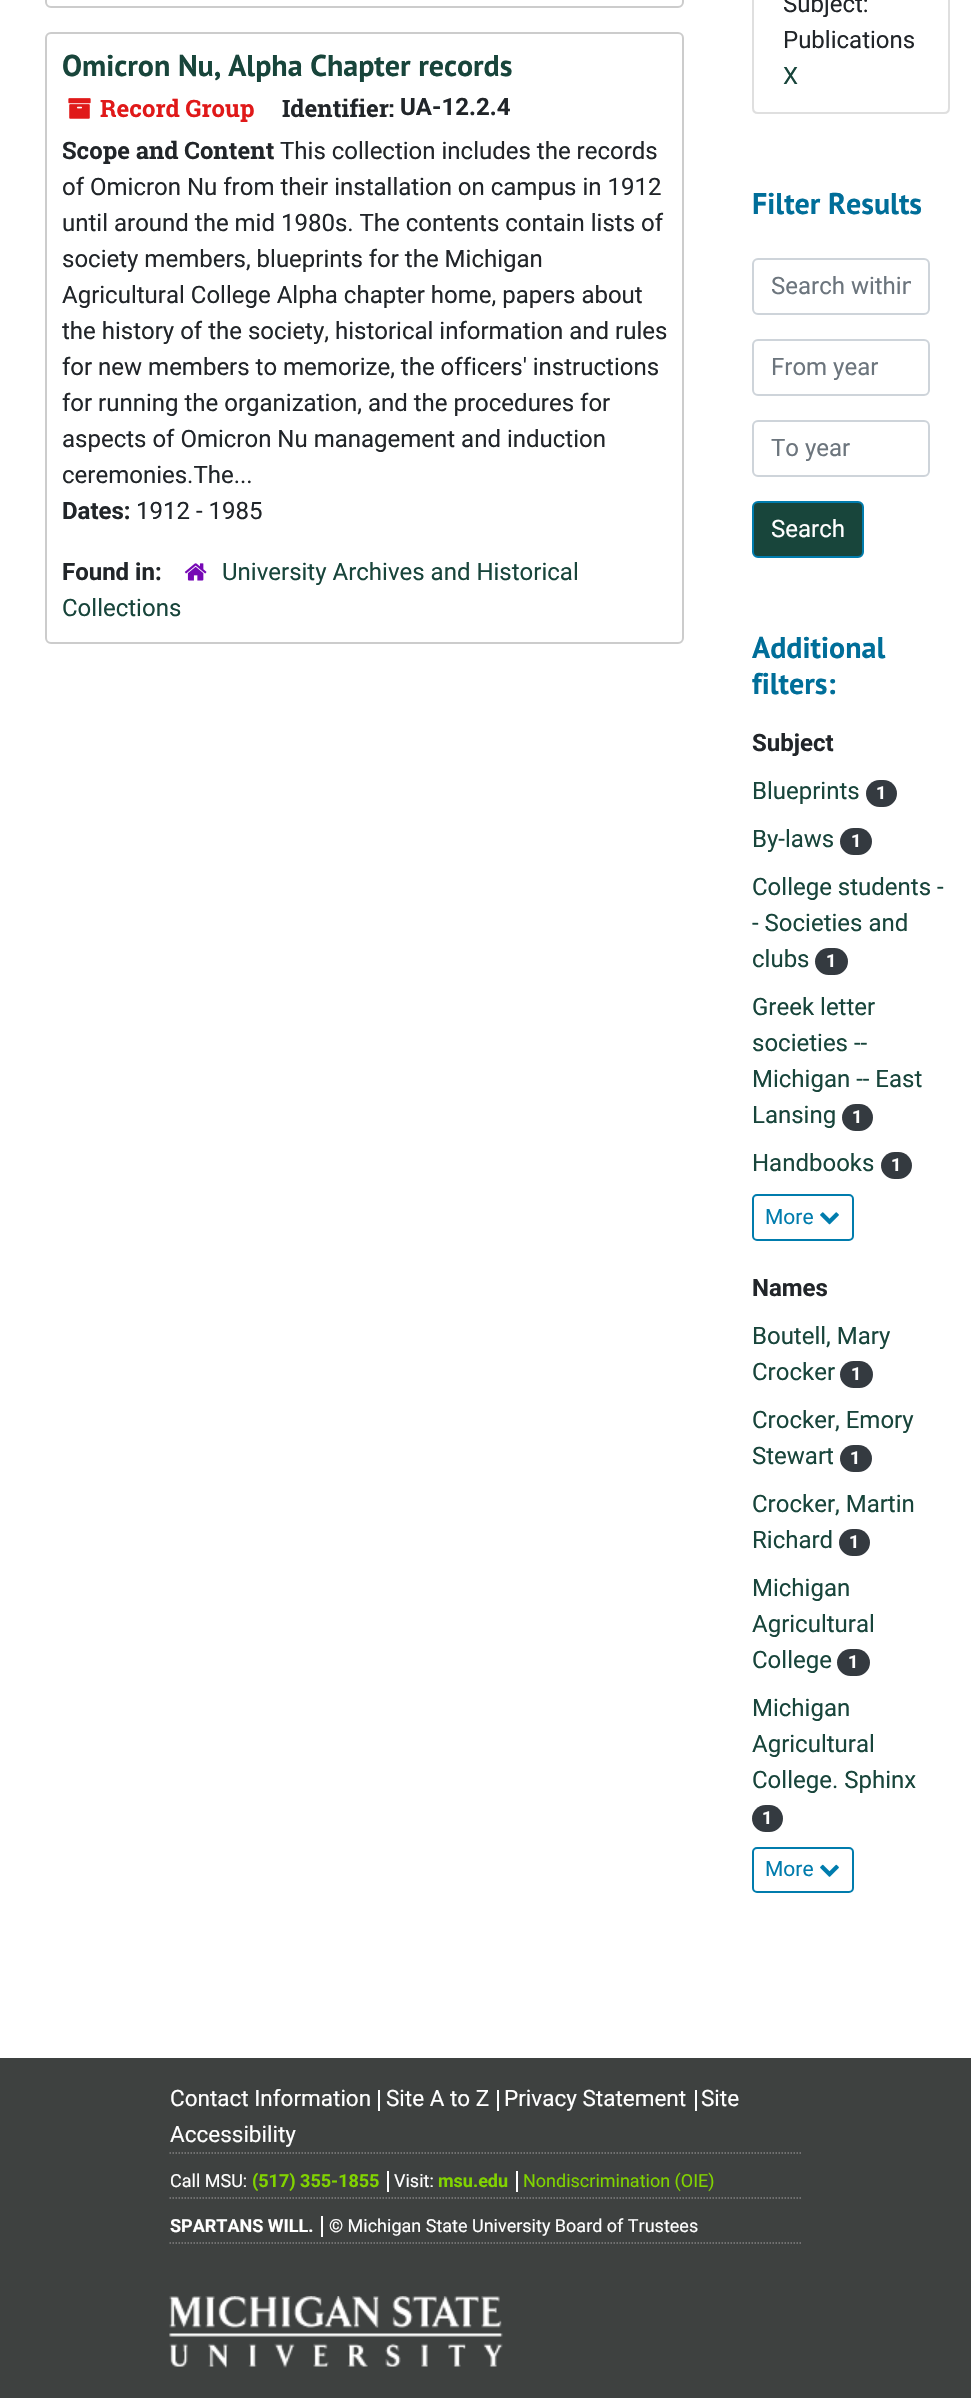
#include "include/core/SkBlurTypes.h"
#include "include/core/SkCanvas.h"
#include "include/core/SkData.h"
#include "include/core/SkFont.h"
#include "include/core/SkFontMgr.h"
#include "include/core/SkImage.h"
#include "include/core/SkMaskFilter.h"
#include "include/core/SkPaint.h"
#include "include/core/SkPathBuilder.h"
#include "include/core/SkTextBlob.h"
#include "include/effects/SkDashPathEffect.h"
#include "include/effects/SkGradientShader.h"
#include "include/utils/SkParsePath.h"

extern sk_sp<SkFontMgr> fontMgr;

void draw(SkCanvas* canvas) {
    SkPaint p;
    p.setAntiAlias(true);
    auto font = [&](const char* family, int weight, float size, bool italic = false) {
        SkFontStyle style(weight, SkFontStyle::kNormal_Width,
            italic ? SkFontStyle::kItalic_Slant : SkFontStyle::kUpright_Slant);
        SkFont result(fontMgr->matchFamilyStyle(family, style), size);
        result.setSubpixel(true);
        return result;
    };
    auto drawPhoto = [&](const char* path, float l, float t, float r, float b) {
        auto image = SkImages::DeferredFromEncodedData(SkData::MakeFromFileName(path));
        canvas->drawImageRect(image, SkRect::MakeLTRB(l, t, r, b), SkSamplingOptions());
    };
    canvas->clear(0xFFFFFFFF);
    p.setStyle(SkPaint::kStroke_Style);
    p.setStrokeWidth(2);
    p.setColor(0xFFCCCCCC);
    canvas->drawRoundRect(SkRect::MakeLTRB(46, -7, 683, 7), 5, 5, p);
    canvas->drawRoundRect(SkRect::MakeLTRB(46, 33, 683, 643), 5, 5, p);
    auto font1 = font("PT Sans", 700, 30);
    p.setStyle(SkPaint::kFill_Style);
    p.setColor(0xFF18453B);
    canvas->drawString("Omicron Nu, Alpha Chapter records", 62, 76, font1, p);
    drawPhoto("media/1.png", 68, 98, 91, 119);
    auto font2 = font("Roboto Slab", 700, 24);
    p.setColor(0xFFE01919);
    canvas->drawString("Record Group", 100, 117, font2, p);
    p.setColor(0xFF212529);
    canvas->drawString("Identifier:", 282, 117, font2, p);
    auto font3 = font("Roboto", 700, 24);
    canvas->drawString("UA-12.2.4", 400, 115, font3, p);
    canvas->drawString("Scope and Content", 62, 159, font2, p);
    auto font4 = font("Roboto", 400, 24);
    {
        const struct { const char* s; float x, y; } items[] = {
            {"This collection includes the records", 280, 159},
            {"of Omicron Nu from their installation on campus in 1912", 62, 195},
            {"until around the mid 1980s. The contents contain lists of", 62, 231},
            {"society members, blueprints for the Michigan", 62, 267},
            {"Agricultural College Alpha chapter home, papers about", 62, 303},
            {"the history of the society, historical information and rules", 62, 339},
            {"for new members to memorize, the officers' instructions", 62, 375},
            {"for running the organization, and the procedures for", 62, 411},
            {"aspects of Omicron Nu management and induction", 62, 447},
            {"ceremonies.The...", 62, 483},
        };
        for (auto [s, x, y] : items) {
            canvas->drawString(s, x, y, font4, p);
        }
    }
    canvas->drawString("Dates:", 62, 519, font3, p);
    canvas->drawString("1912 - 1985", 136, 519, font4, p);
    drawPhoto("media/2.png", 184, 563, 207, 581);
    p.setColor(0xFF18453B);
    canvas->drawString("University Archives and Historical", 222, 580, font4, p);
    canvas->drawString("Collections", 62, 616, font4, p);
    p.setColor(0xFF212529);
    canvas->drawString("Found in:", 62, 580, font3, p);
    p.setStyle(SkPaint::kStroke_Style);
    p.setColor(0xFFDFDFDF);
    canvas->drawPath(SkPathBuilder().moveTo(753, -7).lineTo(949, -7).lineTo(949, 108).cubicTo(949, 111, 947, 113, 944, 113).lineTo(758, 113).cubicTo(755, 113, 753, 111, 753, 108).close().detach(), p);
    p.setStyle(SkPaint::kFill_Style);
    p.setColor(0xFF212529);
    canvas->drawString("Subject:", 783, 12, font4, p);
    canvas->drawString("Publications", 783, 48, font4, p);
    p.setColor(0xFF18453B);
    canvas->drawString("X", 783, 84, font4, p);
    p.setColor(0xFF006E99);
    canvas->drawString("Filter Results", 752, 214, font1, p);
    p.setStyle(SkPaint::kStroke_Style);
    p.setColor(0xFFCED4DA);
    canvas->drawRoundRect(SkRect::MakeLTRB(753, 259, 929, 314), 5, 5, p);
    canvas->save();
    canvas->clipRect(SkRect::MakeLTRB(771, 272, 911, 300));
    p.setStyle(SkPaint::kFill_Style);
    p.setColor(0xFF6C757D);
    canvas->drawString("Search within", 771, 294, font4, p);
    canvas->restore();
    p.setStyle(SkPaint::kStroke_Style);
    p.setColor(0xFFCED4DA);
    canvas->drawRoundRect(SkRect::MakeLTRB(753, 340, 929, 395), 5, 5, p);
    p.setStyle(SkPaint::kFill_Style);
    p.setColor(0xFF6C757D);
    canvas->drawString("From year", 771, 375, font4, p);
    p.setStyle(SkPaint::kStroke_Style);
    p.setColor(0xFFCED4DA);
    canvas->drawRoundRect(SkRect::MakeLTRB(753, 421, 929, 476), 5, 5, p);
    p.setStyle(SkPaint::kFill_Style);
    p.setColor(0xFF6C757D);
    canvas->drawString("To year", 771, 456, font4, p);
    p.setColor(0xFF18453B);
    canvas->drawRoundRect(SkRect::MakeLTRB(753, 502, 863, 557), 5, 5, p);
    p.setStyle(SkPaint::kStroke_Style);
    p.setColor(0xFF007CAD);
    canvas->drawRoundRect(SkRect::MakeLTRB(753, 502, 863, 557), 5, 5, p);
    p.setStyle(SkPaint::kFill_Style);
    p.setColor(0xFFFFFFFF);
    canvas->drawString("Search", 771, 537, font4, p);
    p.setColor(0xFF006E99);
    canvas->drawString("Additional", 752, 658, font1, p);
    canvas->drawString("filters:", 752, 694, font1, p);
    p.setColor(0xFF212529);
    canvas->drawString("Subject", 752, 751, font3, p);
    p.setColor(0xFF18453B);
    canvas->drawString("Blueprints", 752, 799, font4, p);
    p.setColor(0xFF343A40);
    canvas->drawRoundRect(SkRect::MakeLTRB(866, 780, 897, 807), 13.5f, 13.5f, p);
    auto font5 = font("Roboto", 700, 18);
    p.setColor(0xFFFFFFFF);
    canvas->drawString("1", 876, 799, font5, p);
    p.setColor(0xFF18453B);
    canvas->drawString("By-laws", 752, 847, font4, p);
    p.setColor(0xFF343A40);
    canvas->drawRoundRect(SkRect::MakeLTRB(840, 828, 872, 855), 13.5f, 13.5f, p);
    p.setColor(0xFFFFFFFF);
    canvas->drawString("1", 851, 847, font5, p);
    p.setColor(0xFF18453B);
    {
        const struct { const char* s; float x, y; } items[] = {
            {"College students -", 752, 895},
            {"- Societies and", 752, 931},
            {"clubs", 752, 967},
        };
        for (auto [s, x, y] : items) {
            canvas->drawString(s, x, y, font4, p);
        }
    }
    p.setColor(0xFF343A40);
    canvas->drawRoundRect(SkRect::MakeLTRB(815, 948, 848, 975), 13.5f, 13.5f, p);
    p.setColor(0xFFFFFFFF);
    canvas->drawString("1", 826, 967, font5, p);
    p.setColor(0xFF18453B);
    {
        const struct { const char* s; float x, y; } items[] = {
            {"Greek letter", 752, 1015},
            {"societies --", 752, 1051},
            {"Michigan -- East", 752, 1087},
            {"Lansing", 752, 1123},
        };
        for (auto [s, x, y] : items) {
            canvas->drawString(s, x, y, font4, p);
        }
    }
    p.setColor(0xFF343A40);
    canvas->drawRoundRect(SkRect::MakeLTRB(842, 1104, 873, 1131), 13.5f, 13.5f, p);
    p.setColor(0xFFFFFFFF);
    canvas->drawString("1", 852, 1123, font5, p);
    p.setColor(0xFF18453B);
    canvas->drawString("Handbooks", 752, 1171, font4, p);
    p.setColor(0xFF343A40);
    canvas->drawRoundRect(SkRect::MakeLTRB(881, 1152, 912, 1179), 13.5f, 13.5f, p);
    p.setColor(0xFFFFFFFF);
    canvas->drawString("1", 891, 1171, font5, p);
    p.setStyle(SkPaint::kStroke_Style);
    p.setColor(0xFF007CAD);
    canvas->drawRoundRect(SkRect::MakeLTRB(753, 1195, 853, 1240), 4, 4, p);
    auto font6 = font("Roboto", 400, 21);
    p.setStyle(SkPaint::kFill_Style);
    canvas->drawString("More", 765, 1224, font6, p);
    drawPhoto("media/3.png", 820, 1212, 839, 1225);
    p.setColor(0xFF212529);
    canvas->drawString("Names", 752, 1296, font3, p);
    p.setColor(0xFF18453B);
    canvas->drawString("Boutell, Mary", 752, 1344, font4, p);
    canvas->drawString("Crocker", 752, 1380, font4, p);
    p.setColor(0xFF343A40);
    canvas->drawRoundRect(SkRect::MakeLTRB(840, 1361, 873, 1388), 13.5f, 13.5f, p);
    p.setColor(0xFFFFFFFF);
    canvas->drawString("1", 851, 1380, font5, p);
    p.setColor(0xFF18453B);
    canvas->drawString("Crocker, Emory", 752, 1428, font4, p);
    canvas->drawString("Stewart", 752, 1464, font4, p);
    p.setColor(0xFF343A40);
    canvas->drawRoundRect(SkRect::MakeLTRB(840, 1445, 872, 1472), 13.5f, 13.5f, p);
    p.setColor(0xFFFFFFFF);
    canvas->drawString("1", 850, 1464, font5, p);
    p.setColor(0xFF18453B);
    canvas->drawString("Crocker, Martin", 752, 1512, font4, p);
    canvas->drawString("Richard", 752, 1548, font4, p);
    p.setColor(0xFF343A40);
    canvas->drawRoundRect(SkRect::MakeLTRB(839, 1529, 870, 1556), 13.5f, 13.5f, p);
    p.setColor(0xFFFFFFFF);
    canvas->drawString("1", 849, 1548, font5, p);
    p.setColor(0xFF18453B);
    {
        const struct { const char* s; float x, y; } items[] = {
            {"Michigan", 752, 1596},
            {"Agricultural", 752, 1632},
            {"College", 752, 1668},
        };
        for (auto [s, x, y] : items) {
            canvas->drawString(s, x, y, font4, p);
        }
    }
    p.setColor(0xFF343A40);
    canvas->drawRoundRect(SkRect::MakeLTRB(837, 1649, 870, 1676), 13.5f, 13.5f, p);
    p.setColor(0xFFFFFFFF);
    canvas->drawString("1", 848, 1668, font5, p);
    p.setColor(0xFF18453B);
    {
        const struct { const char* s; float x, y; } items[] = {
            {"Michigan", 752, 1716},
            {"Agricultural", 752, 1752},
            {"College. Sphinx", 752, 1788},
        };
        for (auto [s, x, y] : items) {
            canvas->drawString(s, x, y, font4, p);
        }
    }
    p.setColor(0xFF343A40);
    canvas->drawRoundRect(SkRect::MakeLTRB(752, 1805, 783, 1832), 13.5f, 13.5f, p);
    p.setColor(0xFFFFFFFF);
    canvas->drawString("1", 762, 1824, font5, p);
    p.setStyle(SkPaint::kStroke_Style);
    p.setColor(0xFF007CAD);
    canvas->drawRoundRect(SkRect::MakeLTRB(753, 1848, 853, 1892), 4, 4, p);
    p.setStyle(SkPaint::kFill_Style);
    canvas->drawString("More", 765, 1876, font6, p);
    drawPhoto("media/4.png", 820, 1864, 839, 1877);
    p.setColor(0xFF3E4140);
    canvas->drawRect(SkRect::MakeLTRB(0, 2058, 971, 2398), p);
    p.setStyle(SkPaint::kStroke_Style);
    p.setStrokeWidth(1.5f);
    p.setColor(0xFF808080);
    p.setPathEffect(SkDashPathEffect::Make({{1.5f, 1.5f}}, 0));
    canvas->drawPath(SkPathBuilder().moveTo(169.5f, 2153).lineTo(802.5f, 2153).detach(), p);
    p.setPathEffect(nullptr);
    auto font7 = font("Roboto", 400, 22.5f);
    p.setStyle(SkPaint::kFill_Style);
    p.setColor(0xFFFFFFFF);
    canvas->drawString("Contact Information", 170, 2106, font7, p);
    canvas->drawRect(SkRect::MakeLTRB(378, 2090, 380, 2111), p);
    canvas->drawString("Site A to Z", 386, 2106, font7, p);
    canvas->drawRect(SkRect::MakeLTRB(497, 2090, 499, 2111), p);
    canvas->drawString("Privacy Statement", 504, 2106, font7, p);
    canvas->drawRect(SkRect::MakeLTRB(695, 2090, 697, 2111), p);
    canvas->drawString("Site", 701, 2106, font7, p);
    canvas->drawString("Accessibility", 170, 2142, font7, p);
    p.setStyle(SkPaint::kStroke_Style);
    p.setColor(0xFF808080);
    p.setPathEffect(SkDashPathEffect::Make({{1.5f, 1.5f}}, 0));
    canvas->drawPath(SkPathBuilder().moveTo(169.5f, 2198).lineTo(802.5f, 2198).detach(), p);
    p.setPathEffect(nullptr);
    auto font8 = font("Roboto", 400, 18);
    p.setStyle(SkPaint::kFill_Style);
    p.setColor(0xFFFFFFFF);
    canvas->drawString("Call MSU:", 170, 2187, font8, p);
    p.setColor(0xFF81D300);
    canvas->drawString("(517) 355-1855", 252, 2187, font5, p);
    p.setColor(0xFFFFFFFF);
    canvas->drawRect(SkRect::MakeLTRB(387, 2171, 389, 2192), p);
    canvas->drawString("Visit:", 394, 2187, font8, p);
    p.setColor(0xFF81D300);
    canvas->drawString("msu.edu", 438, 2187, font5, p);
    p.setColor(0xFFFFFFFF);
    canvas->drawRect(SkRect::MakeLTRB(516, 2171, 518, 2192), p);
    p.setColor(0xFF81D300);
    canvas->drawString("Nondiscrimination (OIE)", 523, 2187, font8, p);
    p.setStyle(SkPaint::kStroke_Style);
    p.setColor(0xFF808080);
    p.setPathEffect(SkDashPathEffect::Make({{1.5f, 1.5f}}, 0));
    canvas->drawPath(SkPathBuilder().moveTo(169.5f, 2243).lineTo(802.5f, 2243).detach(), p);
    p.setPathEffect(nullptr);
    p.setStyle(SkPaint::kFill_Style);
    p.setColor(0xFFFFFFFF);
    canvas->drawString("SPARTANS WILL.", 170, 2232, font5, p);
    canvas->drawRect(SkRect::MakeLTRB(321, 2216, 323, 2237), p);
    canvas->drawString("© Michigan State University Board of Trustees", 329, 2232, font8, p);
    drawPhoto("media/5.png", 169, 2296, 503, 2368);
}
